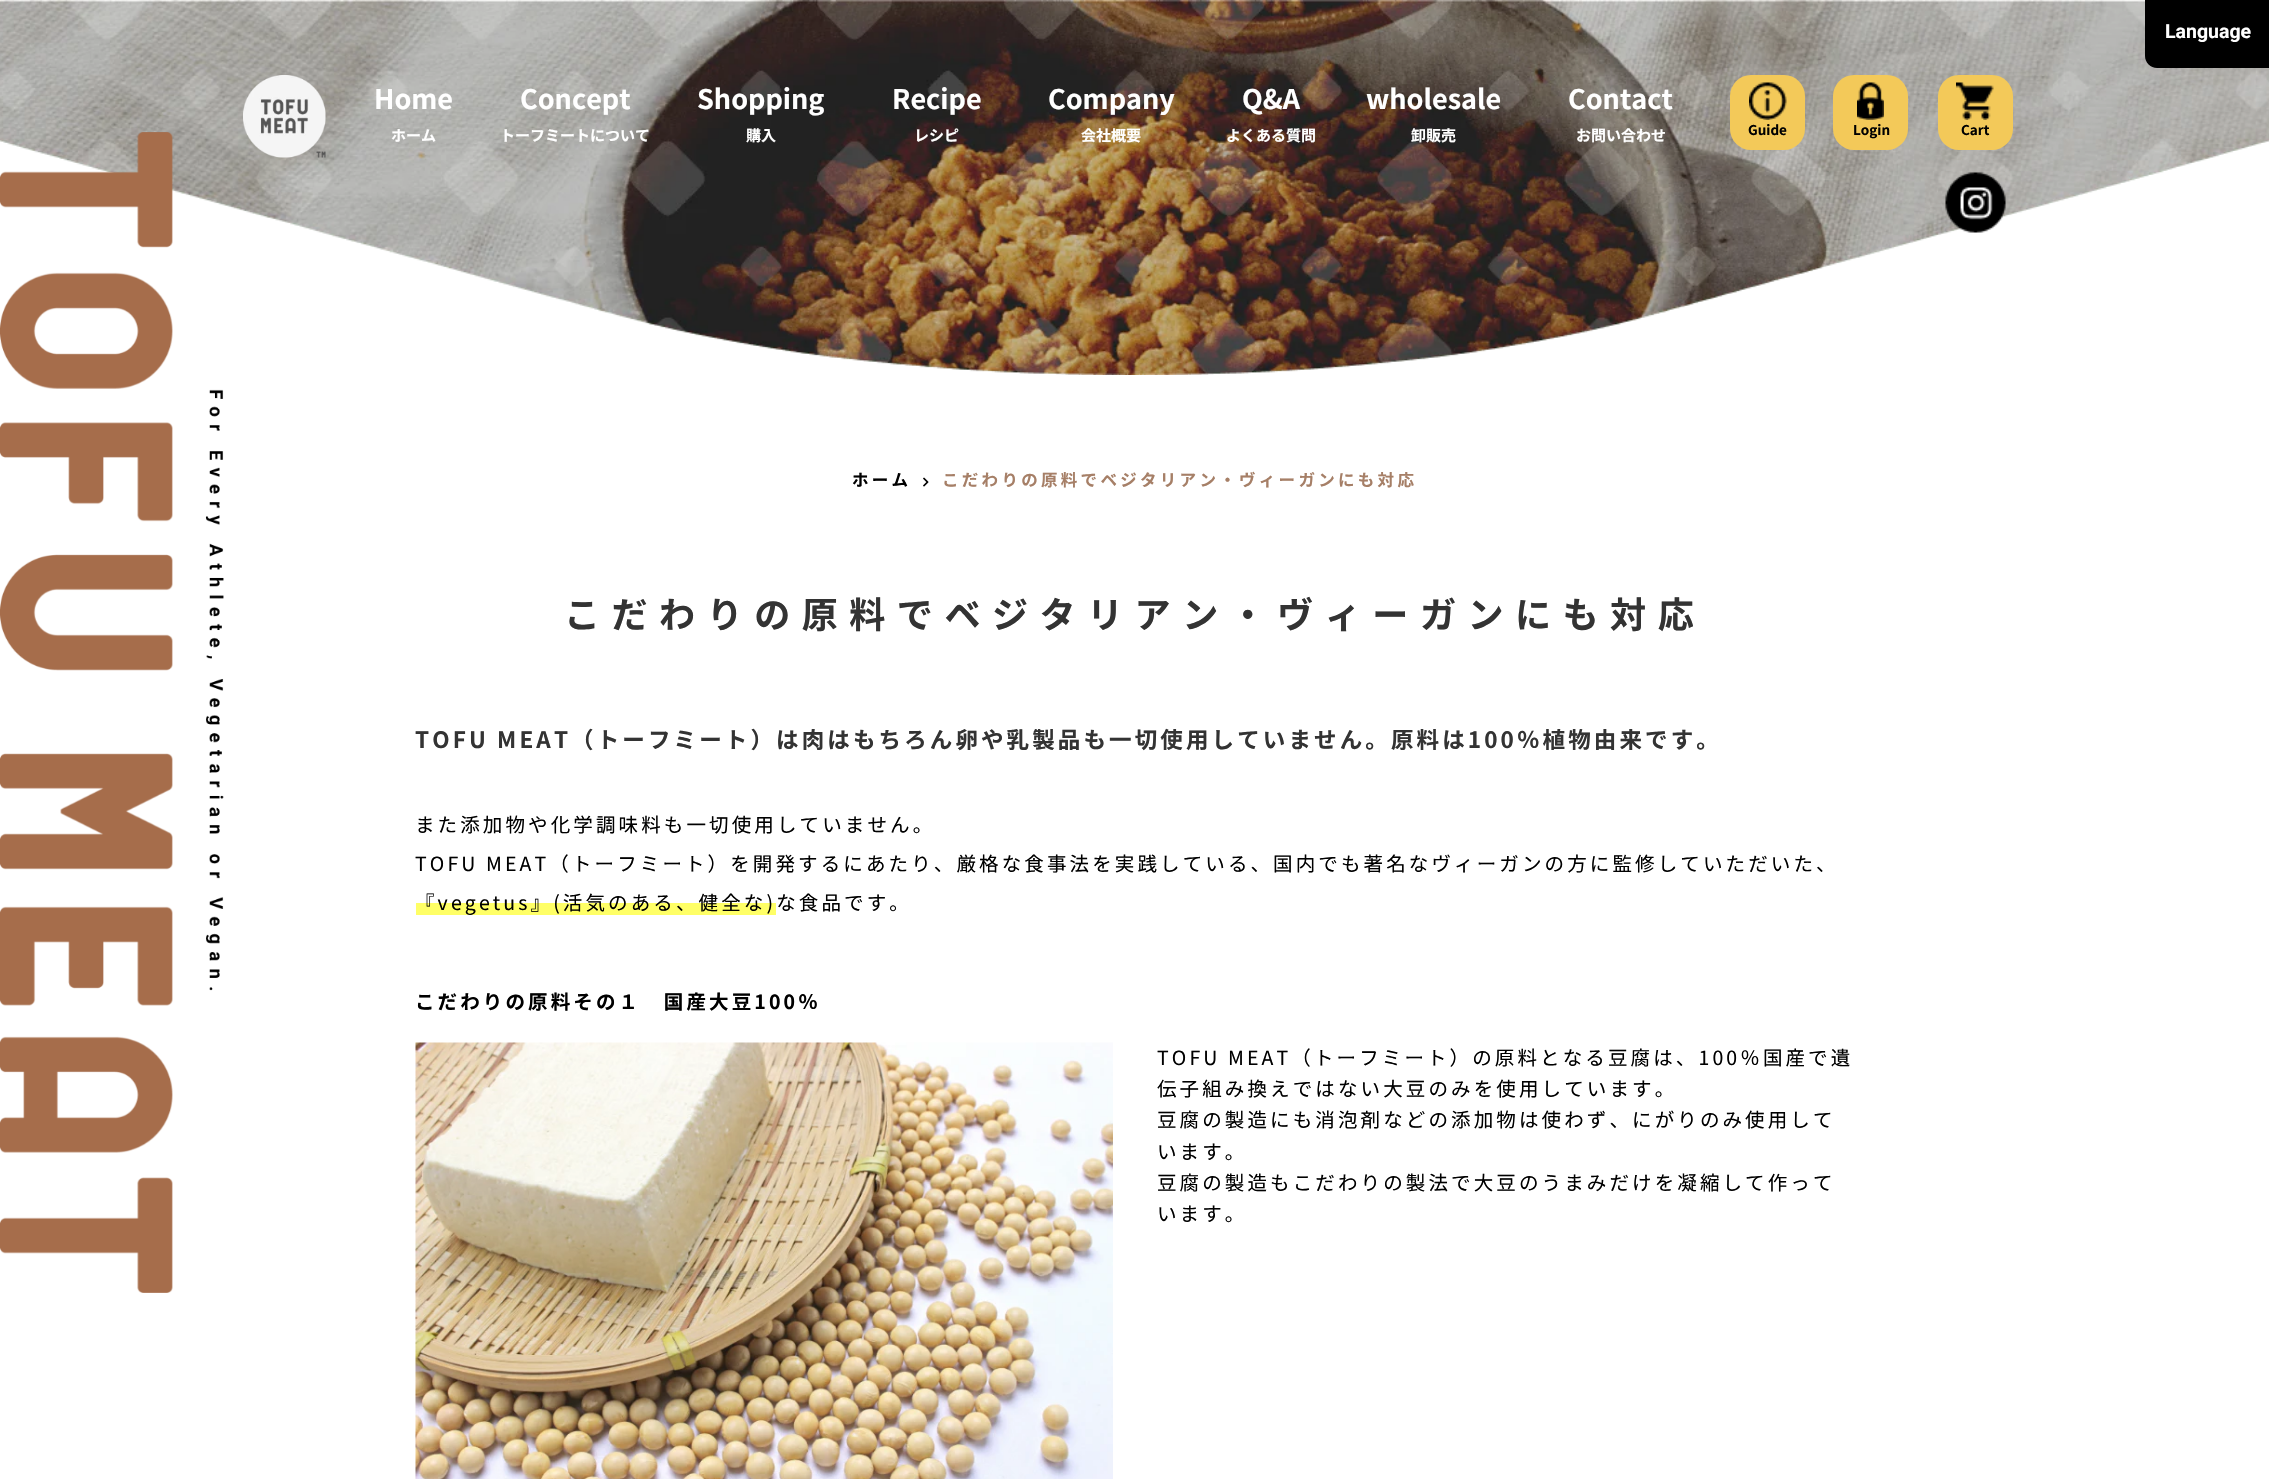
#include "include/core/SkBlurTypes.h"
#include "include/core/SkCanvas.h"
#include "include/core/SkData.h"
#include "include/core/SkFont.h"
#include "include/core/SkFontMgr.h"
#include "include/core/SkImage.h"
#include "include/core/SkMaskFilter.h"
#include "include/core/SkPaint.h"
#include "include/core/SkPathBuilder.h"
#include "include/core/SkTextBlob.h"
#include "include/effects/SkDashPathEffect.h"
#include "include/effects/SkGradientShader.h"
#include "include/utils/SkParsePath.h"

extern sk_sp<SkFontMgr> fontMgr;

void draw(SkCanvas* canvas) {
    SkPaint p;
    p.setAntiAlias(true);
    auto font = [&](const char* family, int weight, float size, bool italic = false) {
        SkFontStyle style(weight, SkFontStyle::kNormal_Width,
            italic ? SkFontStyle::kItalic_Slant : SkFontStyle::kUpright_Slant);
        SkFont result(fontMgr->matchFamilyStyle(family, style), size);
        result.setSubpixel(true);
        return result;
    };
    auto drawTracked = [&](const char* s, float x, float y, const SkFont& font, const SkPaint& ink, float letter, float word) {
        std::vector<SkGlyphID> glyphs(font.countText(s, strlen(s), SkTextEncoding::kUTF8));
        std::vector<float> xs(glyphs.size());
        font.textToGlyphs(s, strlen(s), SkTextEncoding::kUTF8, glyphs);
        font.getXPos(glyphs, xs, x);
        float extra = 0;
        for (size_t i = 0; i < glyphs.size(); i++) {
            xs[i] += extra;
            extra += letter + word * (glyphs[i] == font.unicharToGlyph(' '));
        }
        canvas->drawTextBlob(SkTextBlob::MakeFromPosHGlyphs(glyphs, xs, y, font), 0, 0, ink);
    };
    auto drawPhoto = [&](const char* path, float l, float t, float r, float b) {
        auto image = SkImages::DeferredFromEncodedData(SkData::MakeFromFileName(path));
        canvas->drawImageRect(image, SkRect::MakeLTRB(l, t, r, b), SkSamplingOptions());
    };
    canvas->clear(0xFFFFFFFF);
    drawPhoto("media/1.png", 0, 0, 2269, 375);
    p.setColor(0xFF000000);
    canvas->drawPath(SkPathBuilder().moveTo(2145, 0).lineTo(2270, 0).lineTo(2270, 68).lineTo(2157, 68).cubicTo(2150.5f, 68, 2145, 62.5f, 2145, 56).close().detach(), p);
    auto font1 = font("Roboto", 700, 19.5f);
    p.setColor(0xFFFFFFFF);
    canvas->drawString("Language", 2165, 38, font1, p);
    drawPhoto("media/2.png", 243, 75, 326, 158);
    auto font2 = font("Noto Sans JP", 700, 27);
    canvas->drawString("Home", 374, 109, font2, p);
    auto font3 = font("Noto Sans JP", 700, 15);
    canvas->drawString("ホーム", 391, 141, font3, p);
    canvas->drawString("Concept", 520, 109, font2, p);
    canvas->drawString("トーフミートについて", 500, 141, font3, p);
    canvas->drawString("Shopping", 697, 109, font2, p);
    canvas->drawString("購入", 746, 141, font3, p);
    canvas->drawString("Recipe", 892, 109, font2, p);
    canvas->drawString("レシピ", 914, 141, font3, p);
    canvas->drawString("Company", 1048, 109, font2, p);
    canvas->drawString("会社概要", 1081, 141, font3, p);
    canvas->drawString("Q&A", 1242, 109, font2, p);
    canvas->drawString("よくある質問", 1226, 141, font3, p);
    canvas->drawString("wholesale", 1366, 109, font2, p);
    canvas->drawString("卸販売", 1411, 141, font3, p);
    canvas->drawString("Contact", 1568, 109, font2, p);
    canvas->drawString("お問い合わせ", 1576, 141, font3, p);
    p.setColor(0xFFF3C959);
    canvas->drawRoundRect(SkRect::MakeLTRB(1730, 75, 1805, 150), 21, 21, p);
    drawPhoto("media/3.png", 1749, 82, 1787, 120);
    auto font4 = font("Noto Sans JP", 700, 13.5f);
    p.setColor(0xFF000000);
    canvas->drawString("Guide", 1748, 135, font4, p);
    p.setColor(0xFFF3C959);
    canvas->drawRoundRect(SkRect::MakeLTRB(1833, 75, 1908, 150), 21, 21, p);
    drawPhoto("media/4.png", 1857, 82, 1884, 120);
    p.setColor(0xFF000000);
    canvas->drawString("Login", 1853, 135, font4, p);
    p.setColor(0xFFF3C959);
    canvas->drawRoundRect(SkRect::MakeLTRB(1938, 75, 2013, 150), 21, 21, p);
    drawPhoto("media/5.png", 1956, 82, 1994, 120);
    p.setColor(0xFF000000);
    canvas->drawString("Cart", 1961, 135, font4, p);
    drawPhoto("media/6.png", 1945, 172, 2006, 233);
    drawPhoto("media/7.png", 0, 132, 224, 1293);
    auto font5 = font("Noto Sans JP", 700, 16.5f);
    drawTracked("ホーム", 852, 486, font5, p, 3.3f, 0);
    drawPhoto("media/8.png", 923, 477, 929, 487);
    p.setColor(0xFFA67F67);
    drawTracked("こだわりの原料でベジタリアン・ヴィーガンにも対応", 942, 486, font5, p, 3.3f, 0);
    auto font6 = font("Noto Sans JP", 700, 36.05f);
    p.setColor(0xFF333333);
    drawTracked("こだわりの原料でベジタリアン・ヴィーガンにも対応", 564, 628, font6, p, 11.5f, 0);
    auto font7 = font("Noto Sans JP", 700, 22.5f);
    drawTracked("TOFU MEAT（トーフミート）は肉はもちろん卵や乳製品も一切使用していません。原料は100％植物由来です。", 415, 748, font7, p, 3.12f, 0);
    auto font8 = font("Noto Sans JP", 400, 19.5f);
    p.setColor(0xFF000000);
    drawTracked("また添加物や化学調味料も一切使用していません。", 415, 832, font8, p, 3.12f, 0);
    drawTracked("TOFU MEAT（トーフミート）を開発するにあたり、厳格な食事法を実践している、国内でも著名なヴィーガンの方に監修していただいた、", 415, 871, font8, p, 3.12f, 0);
    p.setColor(0xFFFFFF66);
    canvas->drawRect(SkRect::MakeLTRB(416, 903, 776, 915), p);
    p.setColor(0xFF000000);
    drawTracked("『vegetus』(活気のある、健全な)な食品です。", 415, 910, font8, p, 3.12f, 0);
    auto font9 = font("Noto Sans JP", 700, 19.5f);
    drawTracked("こだわりの原料その１　国産大豆100％", 415, 1009, font9, p, 3.12f, 0);
    drawPhoto("media/9.png", 415, 1042, 1113, 1479);
    {
        const struct { const char* s; float x, y; } items[] = {
            {"TOFU MEAT（トーフミート）の原料となる豆腐は、100％国産で遺", 1157, 1065},
            {"伝子組み換えではない大豆のみを使用しています。", 1157, 1096},
            {"豆腐の製造にも消泡剤などの添加物は使わず、にがりのみ使用して", 1157, 1127},
            {"います。", 1157, 1159},
            {"豆腐の製造もこだわりの製法で大豆のうまみだけを凝縮して作って", 1157, 1190},
            {"います。", 1157, 1221},
        };
        for (auto [s, x, y] : items) {
            drawTracked(s, x, y, font8, p, 3.12f, 0);
        }
    }
}
